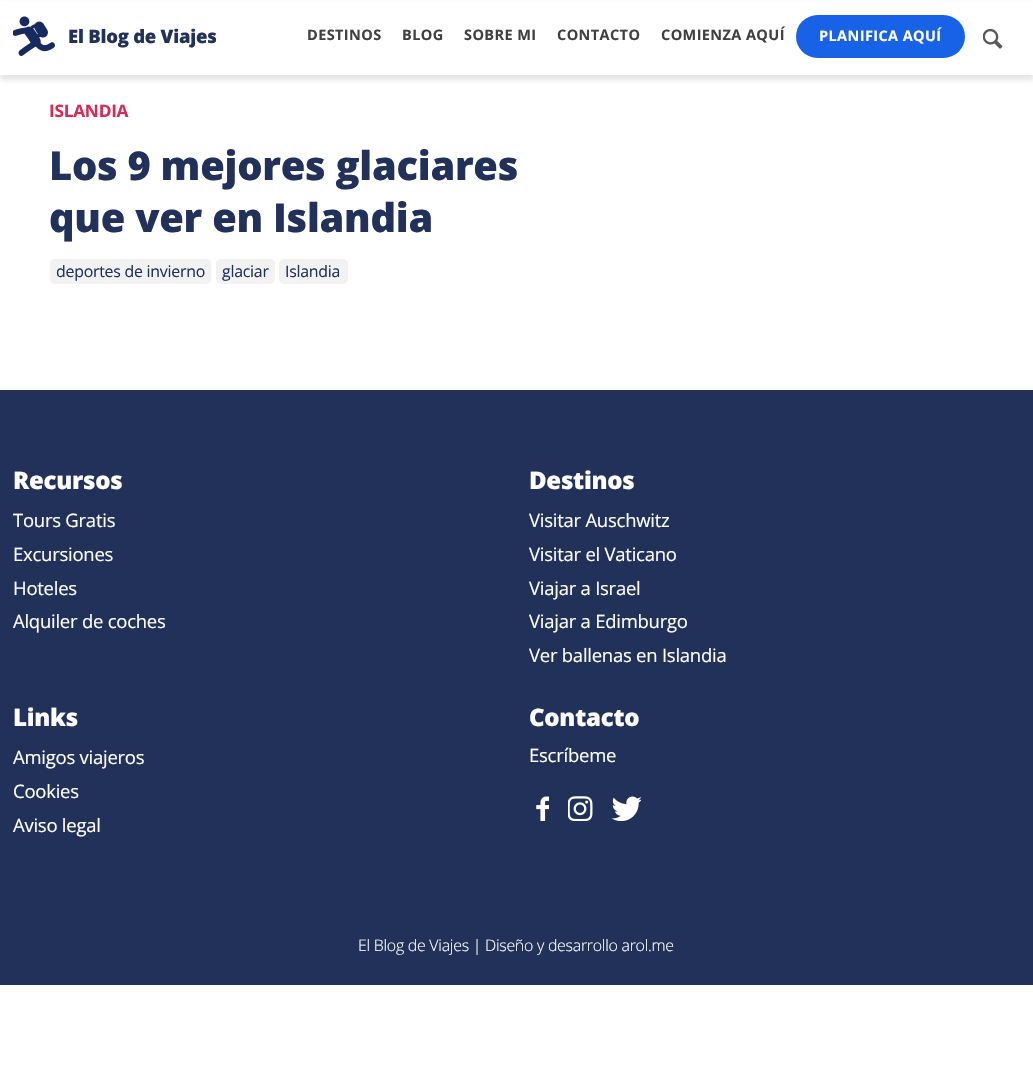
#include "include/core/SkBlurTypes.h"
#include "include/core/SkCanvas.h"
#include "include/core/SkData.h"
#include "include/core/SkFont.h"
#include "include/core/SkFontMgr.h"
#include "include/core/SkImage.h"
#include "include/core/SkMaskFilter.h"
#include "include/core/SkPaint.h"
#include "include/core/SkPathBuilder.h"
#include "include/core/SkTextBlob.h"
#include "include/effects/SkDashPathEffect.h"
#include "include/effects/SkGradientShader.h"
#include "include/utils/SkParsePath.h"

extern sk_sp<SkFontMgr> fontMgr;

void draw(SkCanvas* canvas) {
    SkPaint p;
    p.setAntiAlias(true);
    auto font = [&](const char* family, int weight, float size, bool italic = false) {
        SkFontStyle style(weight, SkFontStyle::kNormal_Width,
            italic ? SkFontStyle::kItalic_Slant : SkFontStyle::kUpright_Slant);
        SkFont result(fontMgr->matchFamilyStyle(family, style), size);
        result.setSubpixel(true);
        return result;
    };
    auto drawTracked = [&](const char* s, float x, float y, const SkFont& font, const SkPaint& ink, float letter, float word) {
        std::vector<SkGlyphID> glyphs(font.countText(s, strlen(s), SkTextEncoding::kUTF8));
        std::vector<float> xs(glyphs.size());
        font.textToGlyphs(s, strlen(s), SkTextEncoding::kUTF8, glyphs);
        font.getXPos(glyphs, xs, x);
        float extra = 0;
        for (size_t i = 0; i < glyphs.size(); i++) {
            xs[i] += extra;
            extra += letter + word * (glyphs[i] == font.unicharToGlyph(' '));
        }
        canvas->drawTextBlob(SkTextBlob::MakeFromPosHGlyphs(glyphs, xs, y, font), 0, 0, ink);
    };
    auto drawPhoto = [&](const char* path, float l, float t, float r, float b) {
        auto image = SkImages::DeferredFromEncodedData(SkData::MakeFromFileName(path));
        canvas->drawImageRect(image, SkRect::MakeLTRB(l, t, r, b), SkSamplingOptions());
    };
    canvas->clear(0xFFFFFFFF);
    p.setColor(0x1A000000);
    p.setMaskFilter(SkMaskFilter::MakeBlur(kNormal_SkBlurStyle, 2.5f));
    canvas->drawRect(SkRect::MakeLTRB(0, 5, 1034, 80), p);
    p.setMaskFilter(nullptr);
    p.setColor(0xFFFFFFFF);
    canvas->drawRect(SkRect::MakeLTRB(0, 2, 1033, 75), p);
    drawPhoto("media/1.png", 13, 16, 55, 56);
    auto font1 = font("Open Sans", 800, 18.5f);
    p.setColor(0xFF213159);
    drawTracked("El Blog de Viajes", 68, 43, font1, p, -0.25f, 0);
    auto font2 = font("Open Sans", 700, 14.5f);
    p.setColor(0xFF404040);
    {
        const struct { const char* s; float x, y; } items[] = {
            {"DESTINOS", 307, 40},
            {"BLOG", 402, 40},
            {"SOBRE MI", 464, 40},
            {"CONTACTO", 557, 40},
            {"COMIENZA AQUÍ", 661, 40},
        };
        for (auto [s, x, y] : items) {
            drawTracked(s, x, y, font2, p, 0.4f, 0);
        }
    }
    p.setColor(0xFF1762E6);
    canvas->drawRoundRect(SkRect::MakeLTRB(796, 15, 965, 58), 21.5f, 21.5f, p);
    p.setColor(0xFFFFFFFF);
    drawTracked("PLANIFICA AQUÍ", 819, 41, font2, p, 0.4f, 0);
    drawPhoto("media/2.png", 983, 29, 1003, 49);
    auto font3 = font("Open Sans", 700, 17.25f);
    p.setColor(0xFFDB2955);
    drawTracked("ISLANDIA", 49, 117, font3, p, -0.25f, 0);
    auto font4 = font("Open Sans", 800, 39.8f);
    p.setColor(0xFF213159);
    drawTracked("Los 9 mejores glaciares", 49, 180, font4, p, -0.25f, 0);
    drawTracked("que ver en Islandia", 49, 232, font4, p, -0.25f, 0);
    p.setColor(0xFFF2F2F2);
    canvas->drawRoundRect(SkRect::MakeLTRB(50, 259, 211, 284), 5, 5, p);
    auto font5 = font("Open Sans", 400, 15.9f);
    p.setColor(0xFF213159);
    drawTracked("deportes de invierno", 56, 277, font5, p, -0.25f, 0);
    p.setColor(0xFFF2F2F2);
    canvas->drawRoundRect(SkRect::MakeLTRB(216, 259, 275, 284), 5, 5, p);
    p.setColor(0xFF213159);
    drawTracked("glaciar", 222, 277, font5, p, -0.25f, 0);
    p.setColor(0xFFF2F2F2);
    canvas->drawRoundRect(SkRect::MakeLTRB(279, 259, 348, 284), 5, 5, p);
    p.setColor(0xFF213159);
    drawTracked("Islandia", 285, 277, font5, p, -0.25f, 0);
    canvas->drawRect(SkRect::MakeLTRB(0, 390, 1033, 985), p);
    auto font6 = font("Open Sans", 800, 24);
    p.setColor(0xFFFFFFFF);
    drawTracked("Recursos", 13, 489, font6, p, -0.25f, 0);
    auto font7 = font("Open Sans", 400, 18.5f);
    {
        const struct { const char* s; float x, y; } items[] = {
            {"Tours Gratis", 13, 527},
            {"Excursiones", 13, 561},
            {"Hoteles", 13, 595},
            {"Alquiler de coches", 13, 628},
        };
        for (auto [s, x, y] : items) {
            drawTracked(s, x, y, font7, p, -0.25f, 0);
        }
    }
    drawTracked("Destinos", 529, 489, font6, p, -0.25f, 0);
    {
        const struct { const char* s; float x, y; } items[] = {
            {"Visitar Auschwitz", 529, 527},
            {"Visitar el Vaticano", 529, 561},
            {"Viajar a Israel", 529, 595},
            {"Viajar a Edimburgo", 529, 628},
            {"Ver ballenas en Islandia", 529, 662},
        };
        for (auto [s, x, y] : items) {
            drawTracked(s, x, y, font7, p, -0.25f, 0);
        }
    }
    drawTracked("Links", 13, 726, font6, p, -0.25f, 0);
    {
        const struct { const char* s; float x, y; } items[] = {
            {"Amigos viajeros", 13, 764},
            {"Cookies", 13, 798},
            {"Aviso legal", 13, 832},
        };
        for (auto [s, x, y] : items) {
            drawTracked(s, x, y, font7, p, -0.25f, 0);
        }
    }
    drawTracked("Contacto", 529, 726, font6, p, -0.25f, 0);
    drawTracked("Escríbeme", 529, 762, font7, p, -0.25f, 0);
    drawPhoto("media/3.png", 536, 796, 549, 821);
    drawPhoto("media/4.png", 568, 796, 593, 821);
    drawPhoto("media/5.png", 611, 796, 641, 821);
    auto font8 = font("Open Sans", 300, 15.9f);
    drawTracked("El Blog de Viajes | Diseño y desarrollo arol.me", 358, 951, font8, p, -0.25f, 0);
}
